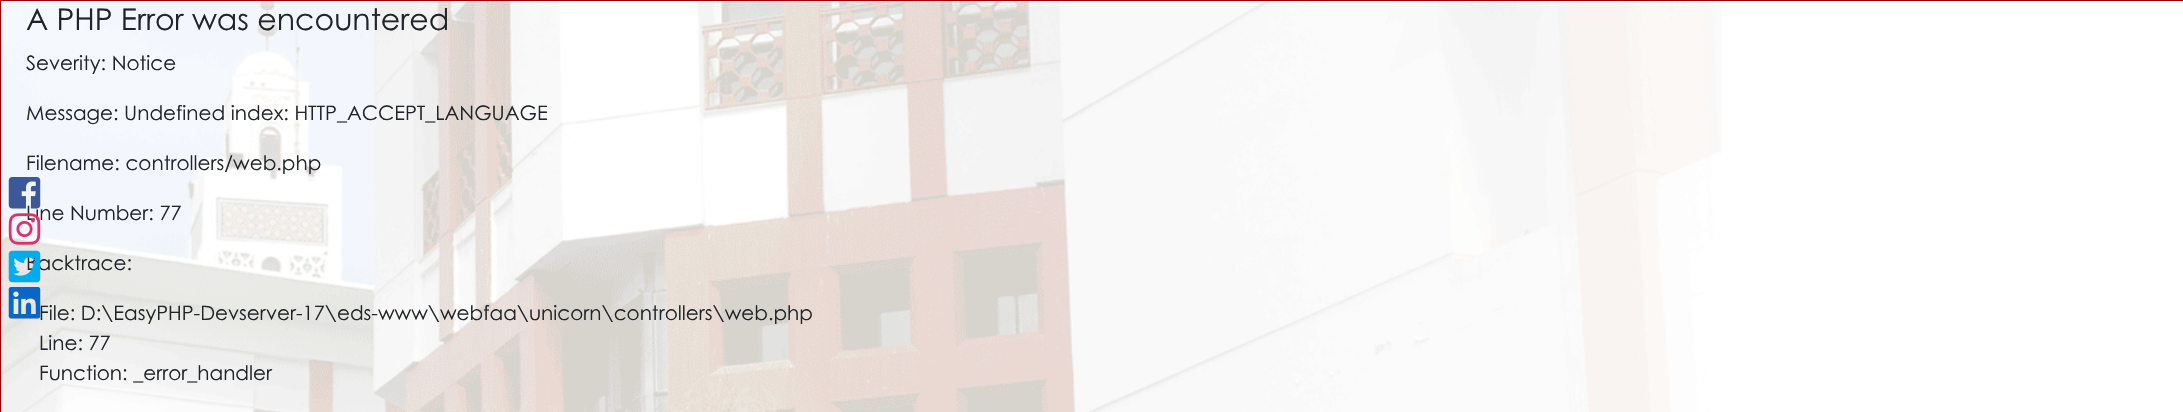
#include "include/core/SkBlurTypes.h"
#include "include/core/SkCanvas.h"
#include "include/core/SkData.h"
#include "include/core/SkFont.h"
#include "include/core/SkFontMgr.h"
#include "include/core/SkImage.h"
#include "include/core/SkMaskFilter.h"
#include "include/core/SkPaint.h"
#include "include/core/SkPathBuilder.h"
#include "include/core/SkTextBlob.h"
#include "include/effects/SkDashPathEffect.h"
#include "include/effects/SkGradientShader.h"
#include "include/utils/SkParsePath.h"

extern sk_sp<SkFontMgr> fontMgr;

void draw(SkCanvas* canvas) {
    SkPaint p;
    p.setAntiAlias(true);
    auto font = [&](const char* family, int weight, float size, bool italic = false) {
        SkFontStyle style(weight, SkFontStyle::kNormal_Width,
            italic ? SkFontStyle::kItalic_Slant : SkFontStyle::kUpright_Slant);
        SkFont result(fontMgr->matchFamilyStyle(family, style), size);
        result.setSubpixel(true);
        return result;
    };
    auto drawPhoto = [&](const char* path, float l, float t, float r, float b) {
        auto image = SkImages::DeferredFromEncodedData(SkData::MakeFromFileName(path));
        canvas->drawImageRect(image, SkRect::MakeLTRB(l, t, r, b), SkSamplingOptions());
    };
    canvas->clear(0xFFFFFFFF);
    drawPhoto("media/1.png", 1, 1, 1722, 412);
    p.setStyle(SkPaint::kStroke_Style);
    p.setStrokeWidth(1);
    p.setColor(0xFF990000);
    canvas->drawRect(SkRect::MakeLTRB(0.5f, 0.5f, 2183.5f, 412.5f), p);
    auto font1 = font("Century Gothic", 400, 20);
    p.setStyle(SkPaint::kFill_Style);
    p.setColor(0xFF212529);
    canvas->drawString("Line Number: 77", 26, 220, font1, p);
    drawPhoto("media/2.png", 8, 177, 41, 209);
    drawPhoto("media/3.png", 8, 213, 41, 245);
    canvas->drawString("Backtrace:", 26, 270, font1, p);
    drawPhoto("media/4.png", 8, 250, 41, 283);
    canvas->drawString("File: D:\\EasyPHP-Devserver-17\\eds-www\\webfaa\\unicorn\\controllers\\web.php", 39, 320, font1, p);
    drawPhoto("media/5.png", 8, 287, 41, 319);
    auto font2 = font("Century Gothic", 400, 30);
    canvas->drawString("A PHP Error was encountered", 26, 30, font2, p);
    {
        const struct { const char* s; float x, y; } items[] = {
            {"Severity: Notice", 26, 70},
            {"Message: Undefined index: HTTP_ACCEPT_LANGUAGE", 26, 120},
            {"Filename: controllers/web.php", 26, 170},
            {"Line: 77", 39, 350},
            {"Function: _error_handler", 39, 380},
        };
        for (auto [s, x, y] : items) {
            canvas->drawString(s, x, y, font1, p);
        }
    }
}
